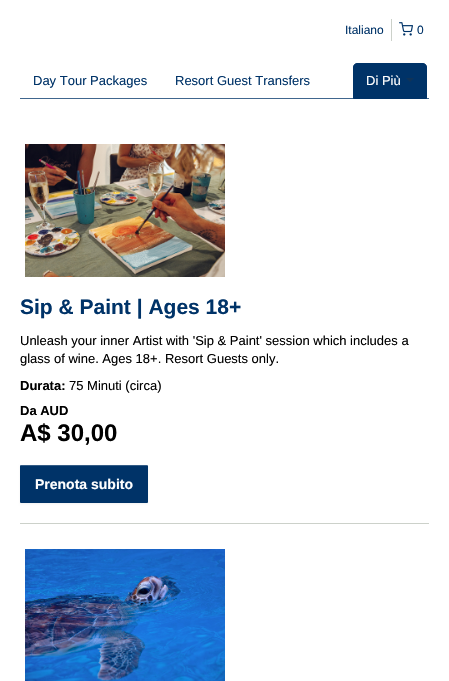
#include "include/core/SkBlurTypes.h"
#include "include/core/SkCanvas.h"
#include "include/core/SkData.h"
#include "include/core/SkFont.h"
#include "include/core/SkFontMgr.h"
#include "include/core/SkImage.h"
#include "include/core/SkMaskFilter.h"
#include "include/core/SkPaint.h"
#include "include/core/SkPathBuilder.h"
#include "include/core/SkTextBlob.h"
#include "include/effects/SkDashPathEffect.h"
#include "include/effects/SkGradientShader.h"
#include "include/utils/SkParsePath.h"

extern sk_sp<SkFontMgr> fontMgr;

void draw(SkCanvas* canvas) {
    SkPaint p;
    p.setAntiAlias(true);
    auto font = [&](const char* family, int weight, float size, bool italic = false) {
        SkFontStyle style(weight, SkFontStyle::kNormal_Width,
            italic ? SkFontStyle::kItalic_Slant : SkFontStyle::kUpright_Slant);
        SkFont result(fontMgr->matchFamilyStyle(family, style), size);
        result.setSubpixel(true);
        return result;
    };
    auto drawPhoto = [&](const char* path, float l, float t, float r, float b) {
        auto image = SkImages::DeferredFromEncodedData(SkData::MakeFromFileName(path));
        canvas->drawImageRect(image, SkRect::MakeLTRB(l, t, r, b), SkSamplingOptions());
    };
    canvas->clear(0xFFFFFFFF);
    p.setColor(0xFFCCD1CA);
    canvas->drawRect(SkRect::MakeLTRB(391, 19, 392, 41), p);
    auto font1 = font("Liberation Sans", 400, 12);
    p.setColor(0xFF003368);
    canvas->drawString("Italiano", 345, 34, font1, p);
    drawPhoto("media/1.png", 399, 22, 413, 36);
    canvas->drawString("0", 417, 34, font1, p);
    p.setColor(0xFF40668E);
    canvas->drawRect(SkRect::MakeLTRB(20, 98, 429, 99), p);
    auto font2 = font("Liberation Sans", 400, 13);
    p.setColor(0xFF003368);
    canvas->drawString("Day Tour Packages", 33, 85, font2, p);
    canvas->drawString("Resort Guest Transfers", 175, 85, font2, p);
    canvas->drawPath(SkPathBuilder().moveTo(357, 63.5f).lineTo(423, 63.5f).cubicTo(425, 63.5f, 426.5f, 65, 426.5f, 67).lineTo(426.5f, 98.5f).lineTo(353.5f, 98.5f).lineTo(353.5f, 67).cubicTo(353.5f, 65, 355, 63.5f, 357, 63.5f).close().detach(), p);
    p.setStyle(SkPaint::kStroke_Style);
    p.setStrokeWidth(1);
    canvas->drawPath(SkPathBuilder().moveTo(357, 63.5f).lineTo(423, 63.5f).cubicTo(425, 63.5f, 426.5f, 65, 426.5f, 67).lineTo(426.5f, 98.5f).lineTo(353.5f, 98.5f).lineTo(353.5f, 67).cubicTo(353.5f, 65, 355, 63.5f, 357, 63.5f).close().detach(), p);
    p.setStyle(SkPaint::kFill_Style);
    p.setColor(0xFFFFFFFF);
    canvas->drawString("Di Più", 366, 85, font2, p);
    p.setColor(0xFF0F3358);
    canvas->drawPath(SkPathBuilder().moveTo(406, 78).lineTo(414, 78).lineTo(410, 82).close().detach(), p);
    p.setColor(0xFFCCD1CA);
    canvas->drawRect(SkRect::MakeLTRB(20, 523, 429, 524), p);
    drawPhoto("media/2.png", 25, 144, 225, 277);
    auto font3 = font("Liberation Sans", 700, 21);
    p.setColor(0xFF003368);
    canvas->drawString("Sip & Paint | Ages 18+", 20, 314, font3, p);
    p.setColor(0xFF000000);
    canvas->drawString("Unleash your inner Artist with 'Sip & Paint' session which includes a", 20, 345, font2, p);
    canvas->drawString("glass of wine. Ages 18+. Resort Guests only.", 20, 363, font2, p);
    auto font4 = font("Liberation Sans", 700, 13);
    canvas->drawString("Durata:", 20, 390, font4, p);
    canvas->drawString("75 Minuti (circa)", 69, 390, font2, p);
    canvas->drawString("Da AUD", 20, 415, font4, p);
    auto font5 = font("Liberation Sans", 700, 24);
    canvas->drawString("A$ 30,00", 20, 441, font5, p);
    p.setColor(0x0D000000);
    p.setMaskFilter(SkMaskFilter::MakeBlur(kNormal_SkBlurStyle, 1));
    canvas->drawRoundRect(SkRect::MakeLTRB(20, 466, 148, 504), 1, 1, p);
    p.setMaskFilter(nullptr);
    p.setColor(0xFF003368);
    canvas->drawRoundRect(SkRect::MakeLTRB(20, 465, 148, 503), 1, 1, p);
    p.setColor(0x33FFFFFF);
    canvas->drawPath(SkPathBuilder().moveTo(21, 466).lineTo(148, 466).lineTo(148, 467).lineTo(148, 465).lineTo(42, 465).cubicTo(40, 465, 20, 459, 20, 467).cubicTo(20, 466, 20, 466, 21, 466).close().detach(), p);
    auto font6 = font("Liberation Sans", 700, 14);
    p.setColor(0xFFFFFFFF);
    canvas->drawString("Prenota subito", 35, 489, font6, p);
    drawPhoto("media/3.png", 25, 549, 225, 681);
}
